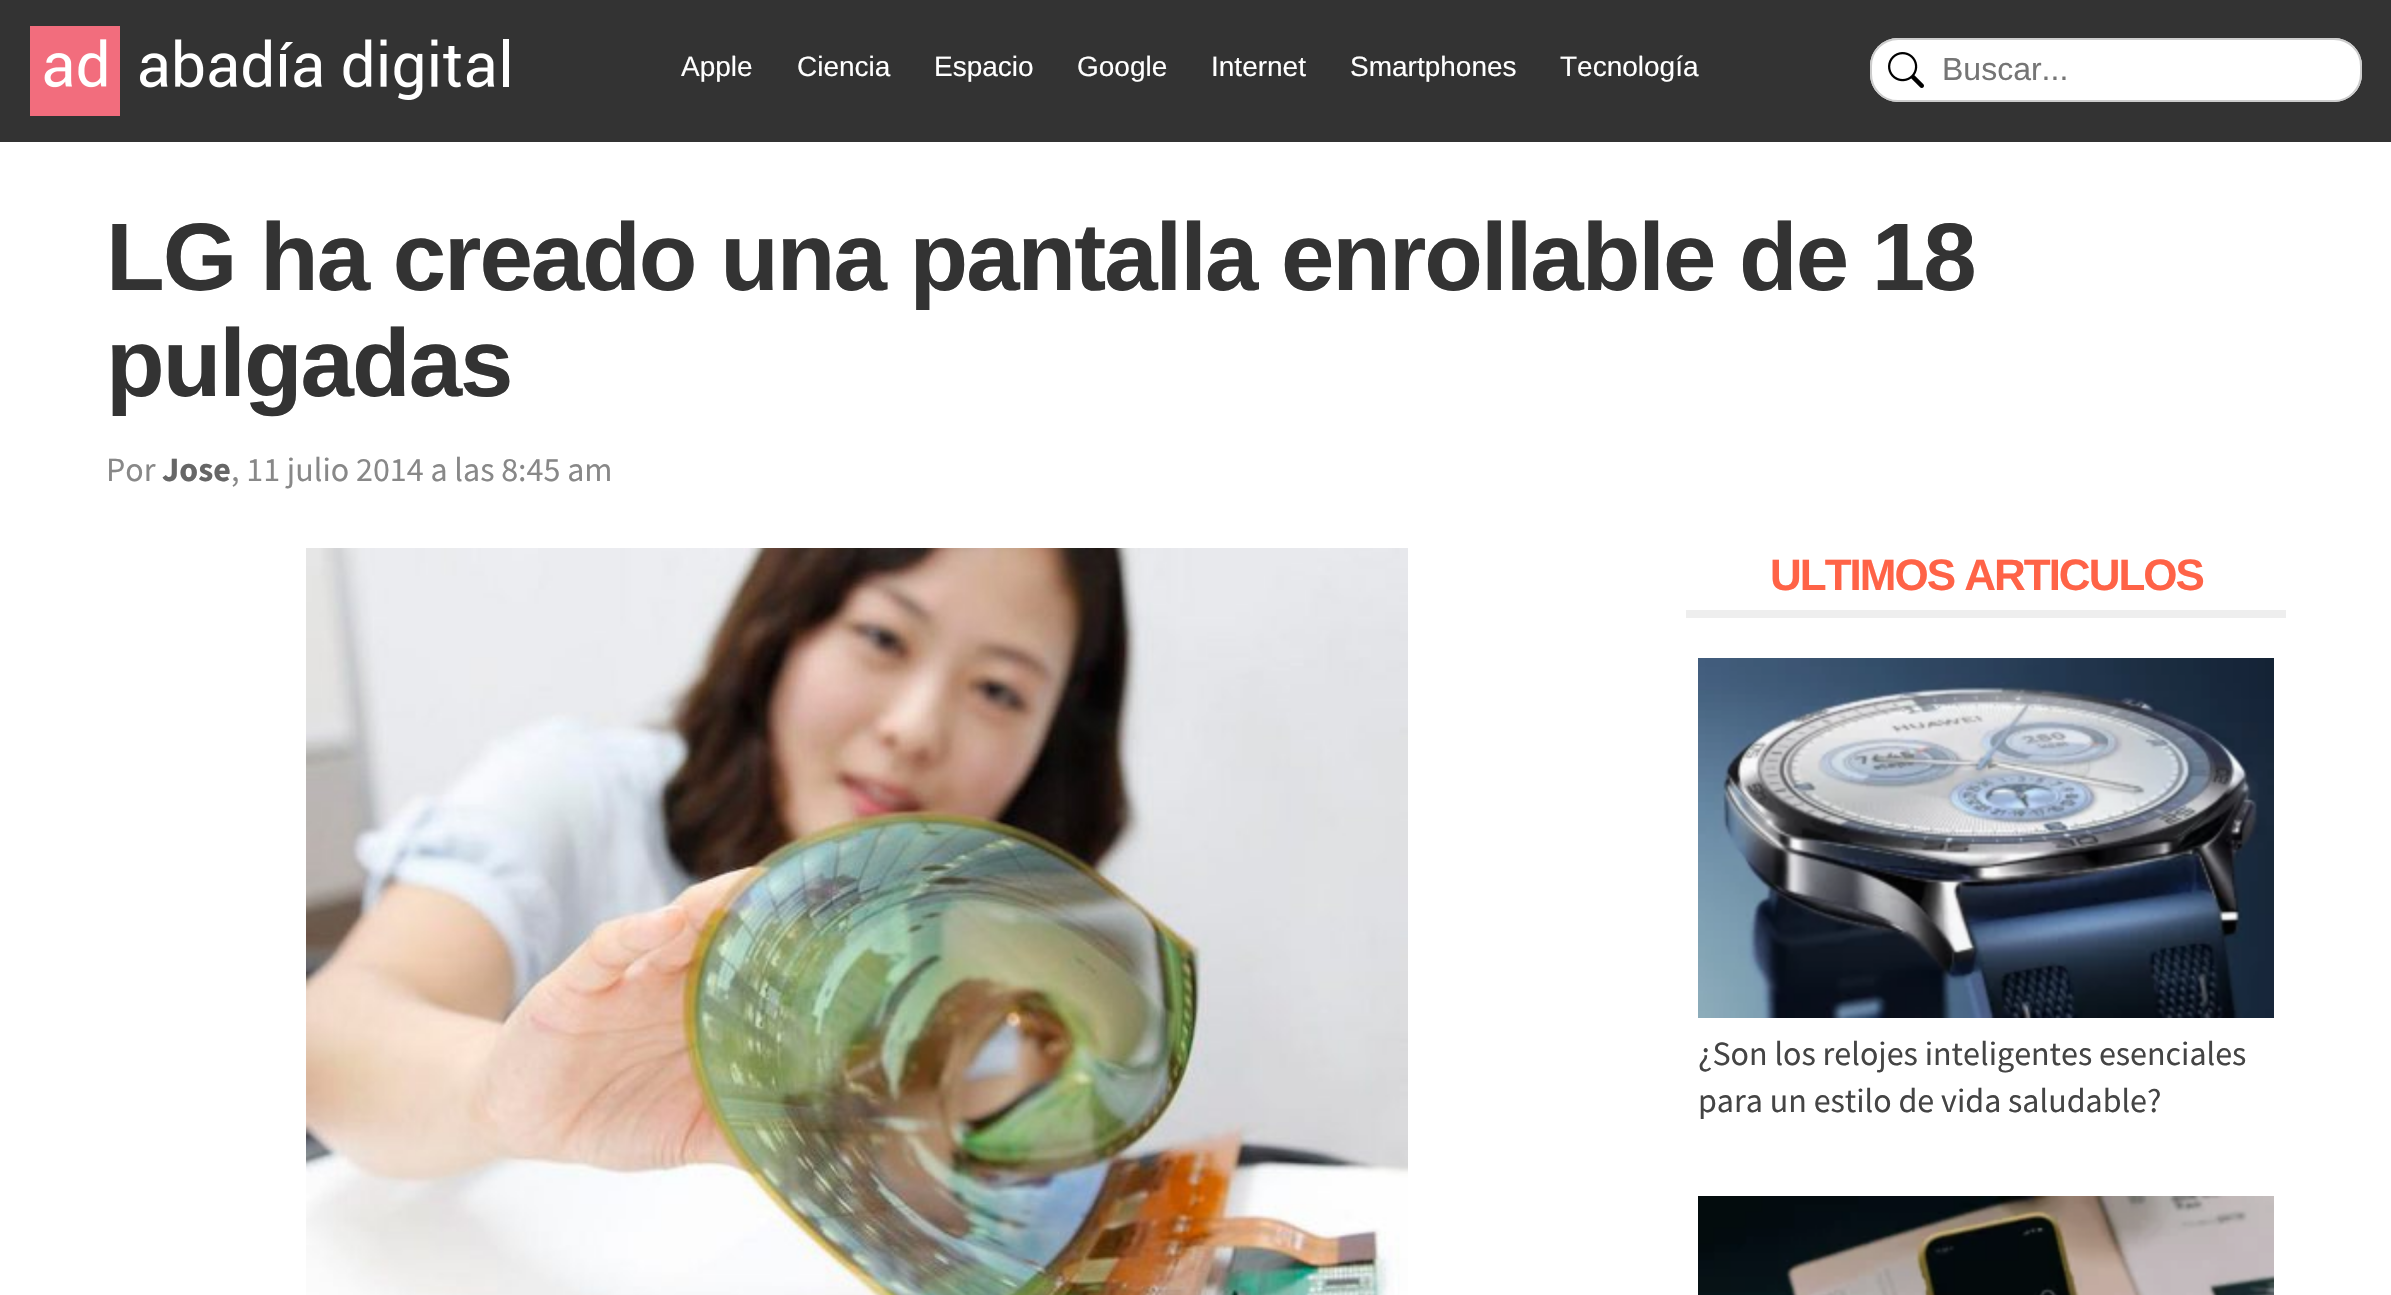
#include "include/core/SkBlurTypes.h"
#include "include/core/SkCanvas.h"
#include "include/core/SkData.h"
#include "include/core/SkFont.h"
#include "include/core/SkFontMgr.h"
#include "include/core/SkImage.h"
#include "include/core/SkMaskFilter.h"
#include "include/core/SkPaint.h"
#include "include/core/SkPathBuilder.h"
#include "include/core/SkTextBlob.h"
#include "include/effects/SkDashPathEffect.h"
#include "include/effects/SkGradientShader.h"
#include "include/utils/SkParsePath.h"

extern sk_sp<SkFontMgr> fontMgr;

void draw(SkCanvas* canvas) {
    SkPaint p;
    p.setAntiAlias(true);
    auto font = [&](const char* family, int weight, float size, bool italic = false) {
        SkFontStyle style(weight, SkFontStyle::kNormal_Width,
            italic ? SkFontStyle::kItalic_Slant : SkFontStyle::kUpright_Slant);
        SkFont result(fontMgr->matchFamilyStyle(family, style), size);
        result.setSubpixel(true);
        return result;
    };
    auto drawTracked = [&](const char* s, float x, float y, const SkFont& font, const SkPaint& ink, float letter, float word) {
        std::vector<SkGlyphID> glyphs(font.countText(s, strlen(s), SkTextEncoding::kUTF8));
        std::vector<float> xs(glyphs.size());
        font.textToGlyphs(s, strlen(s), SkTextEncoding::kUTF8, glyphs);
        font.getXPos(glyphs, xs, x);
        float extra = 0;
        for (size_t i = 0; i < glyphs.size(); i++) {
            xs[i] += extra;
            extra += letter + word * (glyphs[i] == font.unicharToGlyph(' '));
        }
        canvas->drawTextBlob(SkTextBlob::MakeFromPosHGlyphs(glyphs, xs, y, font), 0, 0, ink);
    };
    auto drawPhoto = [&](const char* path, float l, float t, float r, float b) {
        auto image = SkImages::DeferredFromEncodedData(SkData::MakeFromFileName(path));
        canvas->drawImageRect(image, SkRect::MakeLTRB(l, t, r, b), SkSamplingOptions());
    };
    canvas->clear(0xFFFFFFFF);
    p.setColor(0xFF333333);
    canvas->drawRect(SkRect::MakeLTRB(0, 0, 2391, 142), p);
    drawPhoto("media/1.png", 30, 26, 509, 116);
    auto font1 = font("Liberation Sans", 400, 28);
    p.setColor(0xFFFFFFFF);
    {
        const struct { const char* s; float x, y; } items[] = {
            {"Apple", 681, 76},
            {"Ciencia", 797, 76},
            {"Espacio", 934, 76},
            {"Google", 1077, 76},
            {"Internet", 1211, 76},
            {"Smartphones", 1350, 76},
            {"Tecnología", 1560, 76},
        };
        for (auto [s, x, y] : items) {
            canvas->drawString(s, x, y, font1, p);
        }
    }
    canvas->drawRoundRect(SkRect::MakeLTRB(1870, 38, 2362, 102), 28, 28, p);
    drawPhoto("media/2.png", 1888, 52, 1924, 88);
    p.setStyle(SkPaint::kStroke_Style);
    p.setStrokeWidth(2);
    p.setColor(0xFFCCCCCC);
    canvas->drawRoundRect(SkRect::MakeLTRB(1871, 39, 2361, 101), 27, 27, p);
    auto font2 = font("Liberation Sans", 400, 32);
    p.setStyle(SkPaint::kFill_Style);
    p.setColor(0xFF757575);
    canvas->drawString("Buscar...", 1942, 80, font2, p);
    auto font3 = font("Liberation Sans", 700, 96);
    p.setColor(0xFF333333);
    drawTracked("LG ha creado una pantalla enrollable de 18", 106, 290, font3, p, -2, 0);
    drawTracked("pulgadas", 106, 396, font3, p, -2, 0);
    auto font4 = font("Source Sans Pro", 400, 34);
    p.setColor(0xFF888888);
    canvas->drawString("Por", 106, 481, font4, p);
    auto font5 = font("Source Sans Pro", 700, 34);
    p.setColor(0xFF666666);
    canvas->drawString("Jose", 162, 481, font5, p);
    p.setColor(0xFF888888);
    canvas->drawString(", 11 julio 2014 a las 8:45 am", 231, 481, font4, p);
    drawPhoto("media/3.png", 306, 548, 1408, 1295);
    p.setColor(0xFFEEEEEE);
    canvas->drawRect(SkRect::MakeLTRB(1686, 610, 2286, 618), p);
    auto font6 = font("Liberation Sans", 700, 44);
    p.setColor(0xFFFF6347);
    drawTracked("ULTIMOS ARTICULOS", 1770, 590, font6, p, -2, 0);
    drawPhoto("media/4.png", 1698, 658, 2274, 1018);
    p.setColor(0xFF444444);
    canvas->drawString("¿Son los relojes inteligentes esenciales", 1698, 1065, font4, p);
    canvas->drawString("para un estilo de vida saludable?", 1698, 1112, font4, p);
    drawPhoto("media/5.png", 1698, 1196, 2274, 1295);
}
